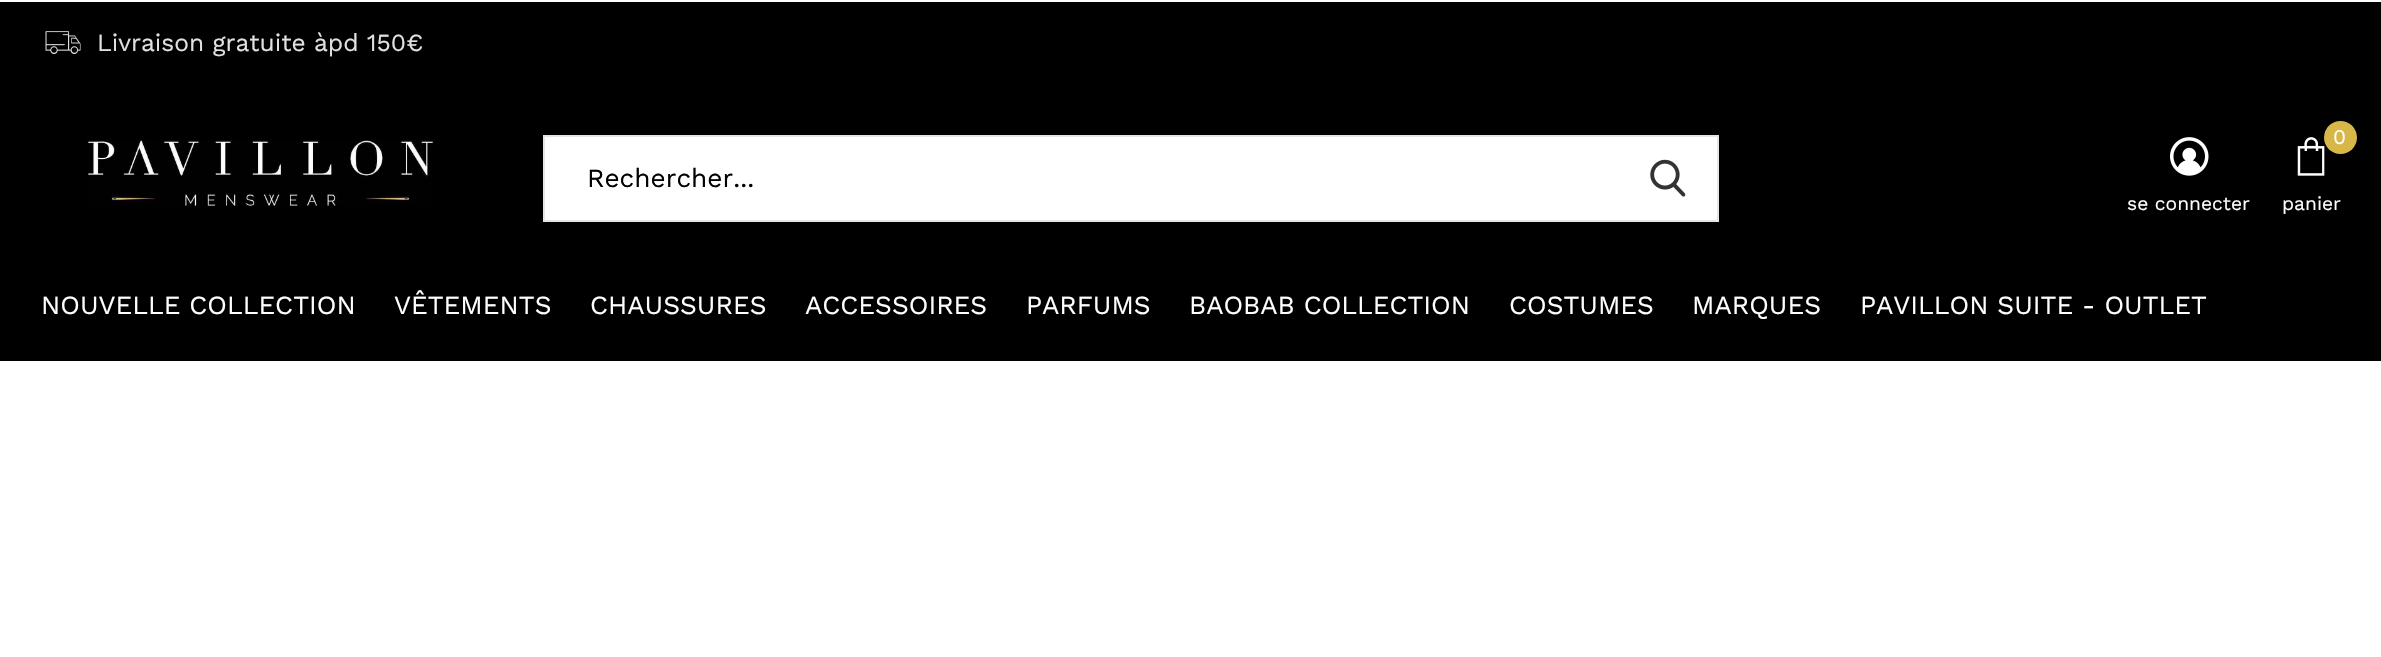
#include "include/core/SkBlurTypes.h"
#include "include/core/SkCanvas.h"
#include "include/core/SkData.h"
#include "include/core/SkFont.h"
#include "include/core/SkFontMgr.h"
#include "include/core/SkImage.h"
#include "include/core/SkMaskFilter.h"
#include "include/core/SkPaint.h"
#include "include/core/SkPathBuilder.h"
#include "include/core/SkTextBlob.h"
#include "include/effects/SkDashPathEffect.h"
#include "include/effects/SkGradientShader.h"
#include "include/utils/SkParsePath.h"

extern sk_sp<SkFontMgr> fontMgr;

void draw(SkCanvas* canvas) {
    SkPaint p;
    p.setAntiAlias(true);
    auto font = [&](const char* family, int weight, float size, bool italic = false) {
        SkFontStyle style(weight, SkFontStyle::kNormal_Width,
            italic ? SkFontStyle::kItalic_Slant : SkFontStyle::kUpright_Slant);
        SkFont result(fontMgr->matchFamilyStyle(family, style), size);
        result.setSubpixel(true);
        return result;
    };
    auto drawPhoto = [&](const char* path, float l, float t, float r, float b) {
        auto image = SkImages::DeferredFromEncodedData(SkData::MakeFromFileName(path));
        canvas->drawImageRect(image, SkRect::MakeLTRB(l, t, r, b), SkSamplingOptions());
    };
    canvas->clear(0xFFFFFFFF);
    p.setColor(0xFF000000);
    canvas->drawRect(SkRect::MakeLTRB(0, 2, 2381, 361), p);
    drawPhoto("media/1.png", 45, 31, 81, 54);
    auto font1 = font("Work Sans", 400, 24.5f);
    p.setColor(0xFFE1E1E1);
    canvas->drawString("Livraison gratuite àpd 150€", 97, 51, font1, p);
    drawPhoto("media/2.png", 2170, 137, 2209, 176);
    auto font2 = font("Work Sans", 400, 19.25f);
    p.setColor(0xFFFFFFFF);
    canvas->drawString("se connecter", 2127, 210, font2, p);
    drawPhoto("media/3.png", 2297, 137, 2325, 176);
    p.setColor(0xFFD6B747);
    canvas->drawCircle(2340.5f, 137.5f, 16.5f, p);
    auto font3 = font("Work Sans", 400, 21);
    p.setColor(0xFFFFFFFF);
    canvas->drawString("0", 2333, 144, font3, p);
    canvas->drawString("panier", 2282, 210, font2, p);
    auto font4 = font("Work Sans", 400, 26.25f);
    {
        const struct { const char* s; float x, y; } items[] = {
            {"NOUVELLE COLLECTION", 41, 314},
            {"VÊTEMENTS", 394, 314},
            {"CHAUSSURES", 590, 314},
            {"ACCESSOIRES", 805, 314},
            {"PARFUMS", 1026, 314},
            {"BAOBAB COLLECTION", 1189, 314},
            {"COSTUMES", 1509, 314},
            {"MARQUES", 1692, 314},
            {"PAVILLON SUITE - OUTLET", 1860, 314},
        };
        for (auto [s, x, y] : items) {
            canvas->drawString(s, x, y, font4, p);
        }
    }
    drawPhoto("media/4.png", 87, 140, 433, 206);
    canvas->drawRect(SkRect::MakeLTRB(544, 136, 1718, 221), p);
    p.setStyle(SkPaint::kStroke_Style);
    p.setStrokeWidth(2);
    p.setColor(0xFFE5E5E5);
    canvas->drawRect(SkRect::MakeLTRB(544, 136, 1718, 221), p);
    p.setStyle(SkPaint::kFill_Style);
    p.setColor(0xFF000000);
    canvas->drawString("Rechercher...", 587, 187, font4, p);
    drawPhoto("media/5.png", 1650, 159, 1686, 197);
}
